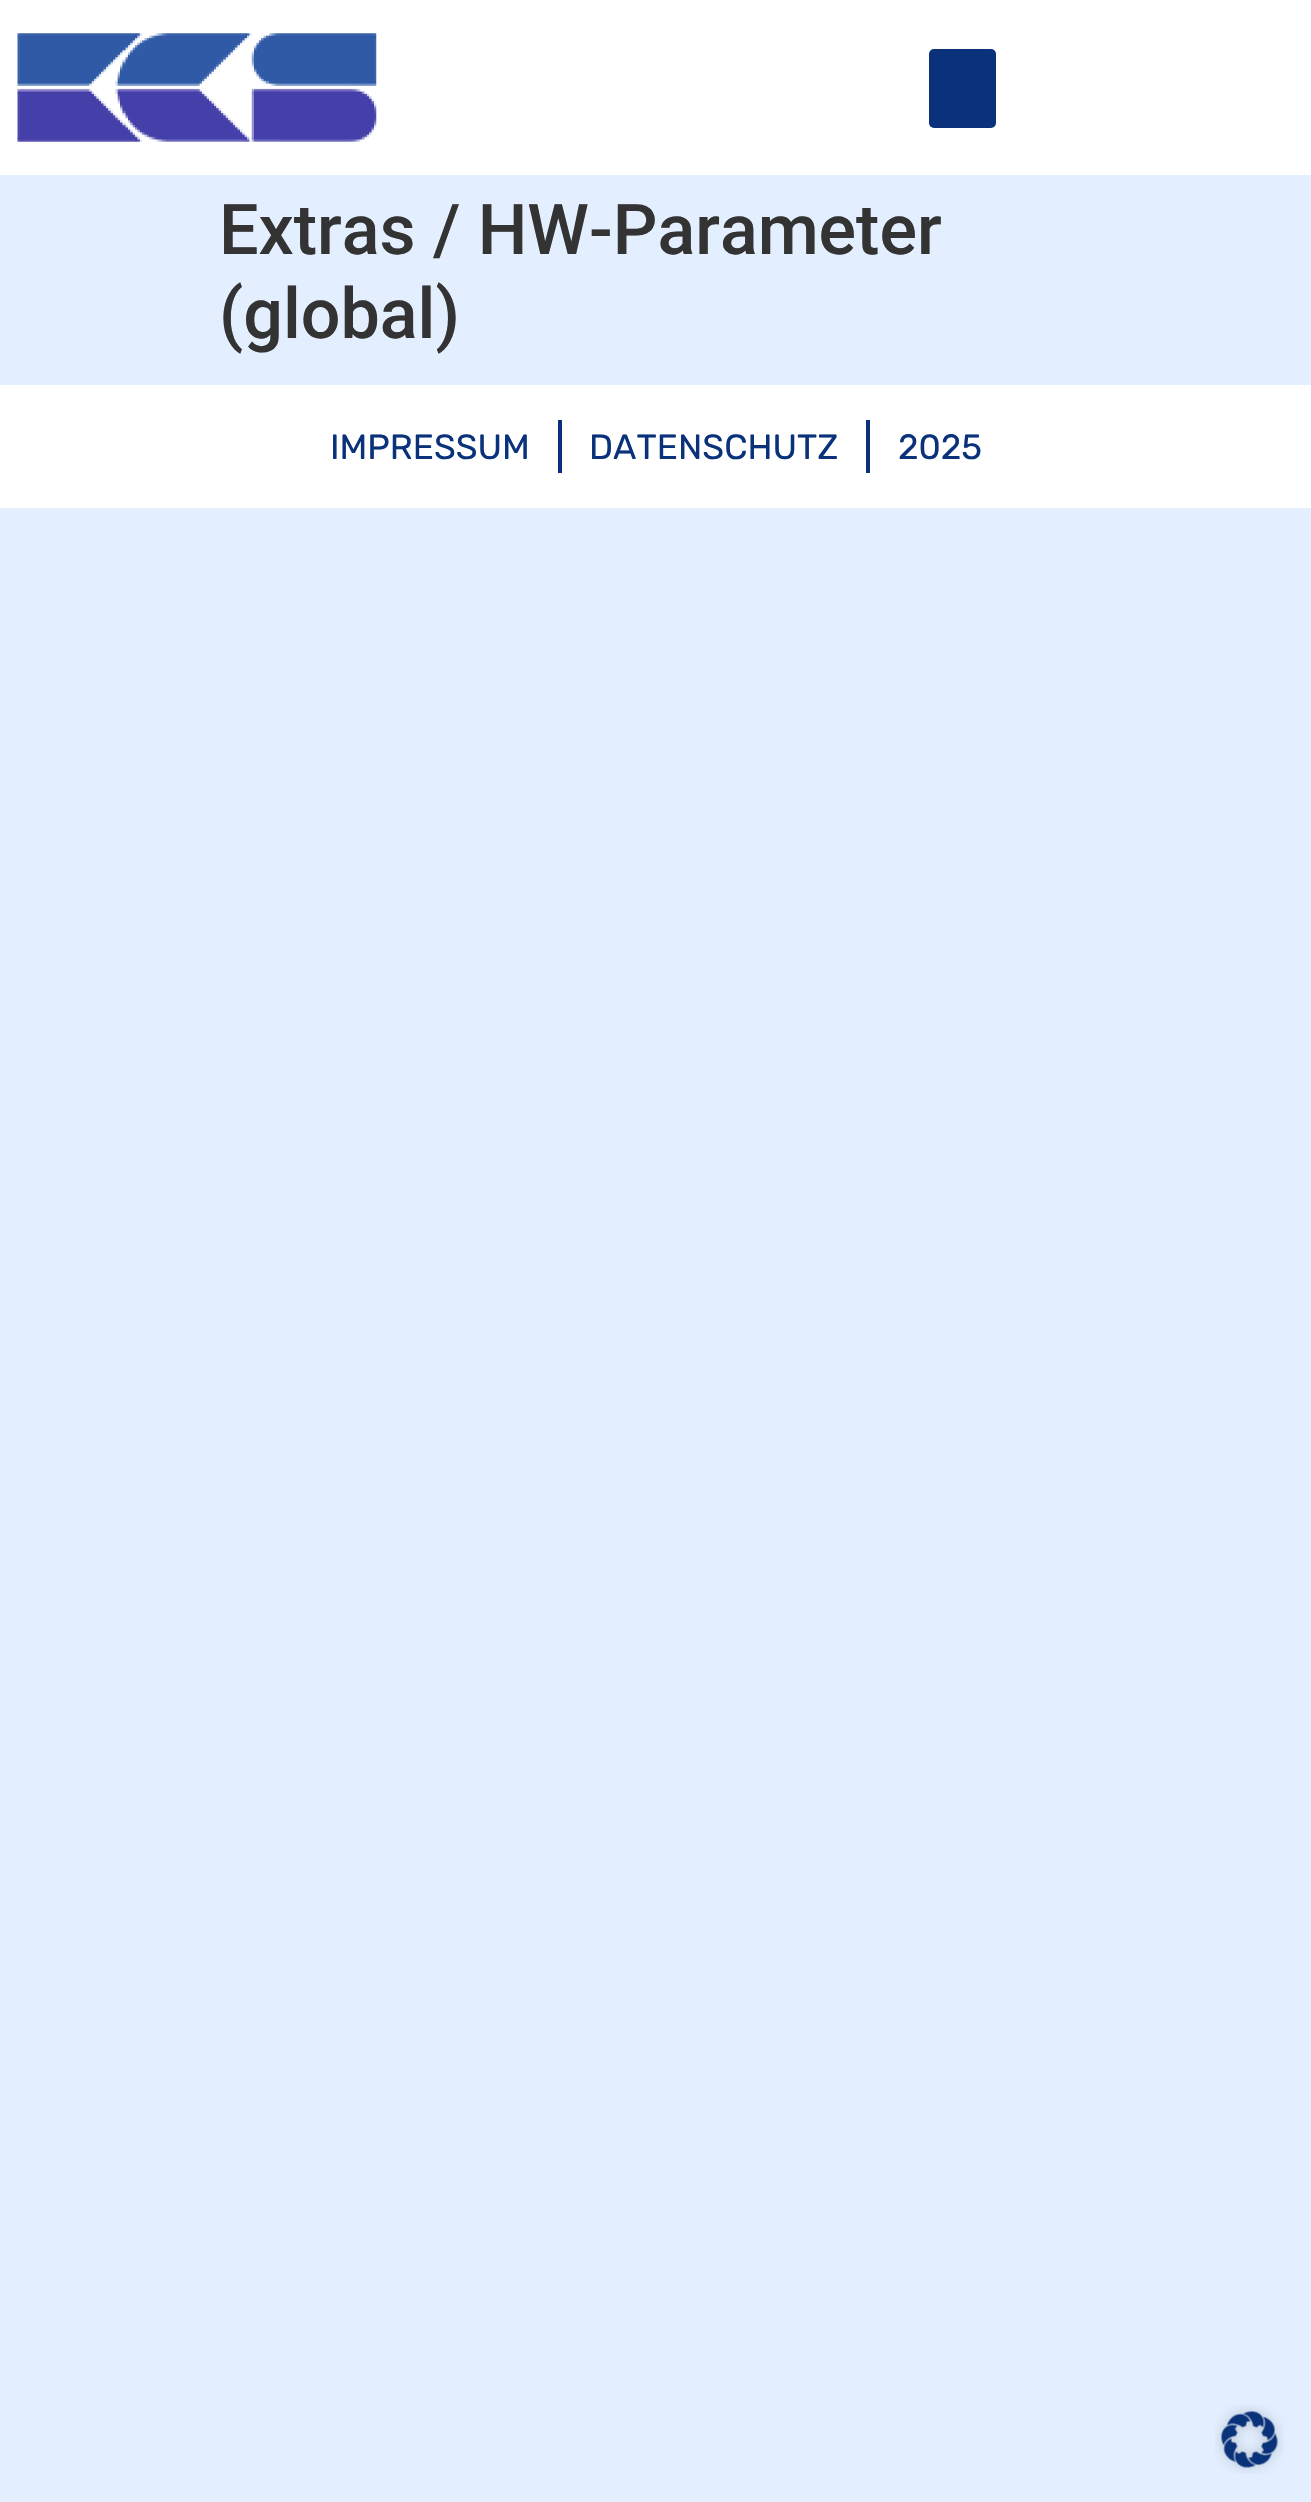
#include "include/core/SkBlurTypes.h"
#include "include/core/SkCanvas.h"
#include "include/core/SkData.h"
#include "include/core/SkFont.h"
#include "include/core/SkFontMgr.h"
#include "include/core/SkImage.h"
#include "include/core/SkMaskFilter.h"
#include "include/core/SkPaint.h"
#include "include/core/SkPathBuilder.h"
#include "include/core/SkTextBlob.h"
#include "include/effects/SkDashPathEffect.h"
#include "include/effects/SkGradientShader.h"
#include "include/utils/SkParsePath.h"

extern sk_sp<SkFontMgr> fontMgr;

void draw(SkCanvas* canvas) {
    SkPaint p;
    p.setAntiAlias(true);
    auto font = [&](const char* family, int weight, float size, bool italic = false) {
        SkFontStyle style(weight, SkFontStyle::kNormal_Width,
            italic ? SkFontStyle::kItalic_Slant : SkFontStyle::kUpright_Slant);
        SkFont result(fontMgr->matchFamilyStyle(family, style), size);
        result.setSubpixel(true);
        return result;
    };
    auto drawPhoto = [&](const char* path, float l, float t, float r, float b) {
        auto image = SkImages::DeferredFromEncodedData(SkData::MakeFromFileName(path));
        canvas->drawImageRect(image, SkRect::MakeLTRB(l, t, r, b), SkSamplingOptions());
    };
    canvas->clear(0xFFE3EFFF);
    p.setColor(0xFFFFFFFF);
    canvas->drawRect(SkRect::MakeLTRB(0, 0, 1311, 175), p);
    drawPhoto("media/1.png", 17, 33, 377, 142);
    p.setColor(0xFF0A327A);
    canvas->drawRoundRect(SkRect::MakeLTRB(929, 49, 996, 128), 5, 5, p);
    auto font1 = font("Roboto", 500, 70);
    p.setColor(0xFF333333);
    canvas->drawString("Extras / HW-Parameter", 219, 254, font1, p);
    canvas->drawString("(global)", 219, 338, font1, p);
    p.setColor(0xFFFFFFFF);
    canvas->drawRect(SkRect::MakeLTRB(0, 385, 1311, 508), p);
    auto font2 = font("Rubik", 400, 35);
    p.setColor(0xFF0A327A);
    canvas->drawString("IMPRESSUM", 330, 459, font2, p);
    canvas->drawRect(SkRect::MakeLTRB(558, 420, 562, 473), p);
    canvas->drawString("DATENSCHUTZ", 589, 459, font2, p);
    canvas->drawRect(SkRect::MakeLTRB(866, 420, 870, 473), p);
    canvas->drawString("2025", 898, 459, font2, p);
    drawPhoto("media/2.png", 1215, 2405, 1284, 2474);
}
